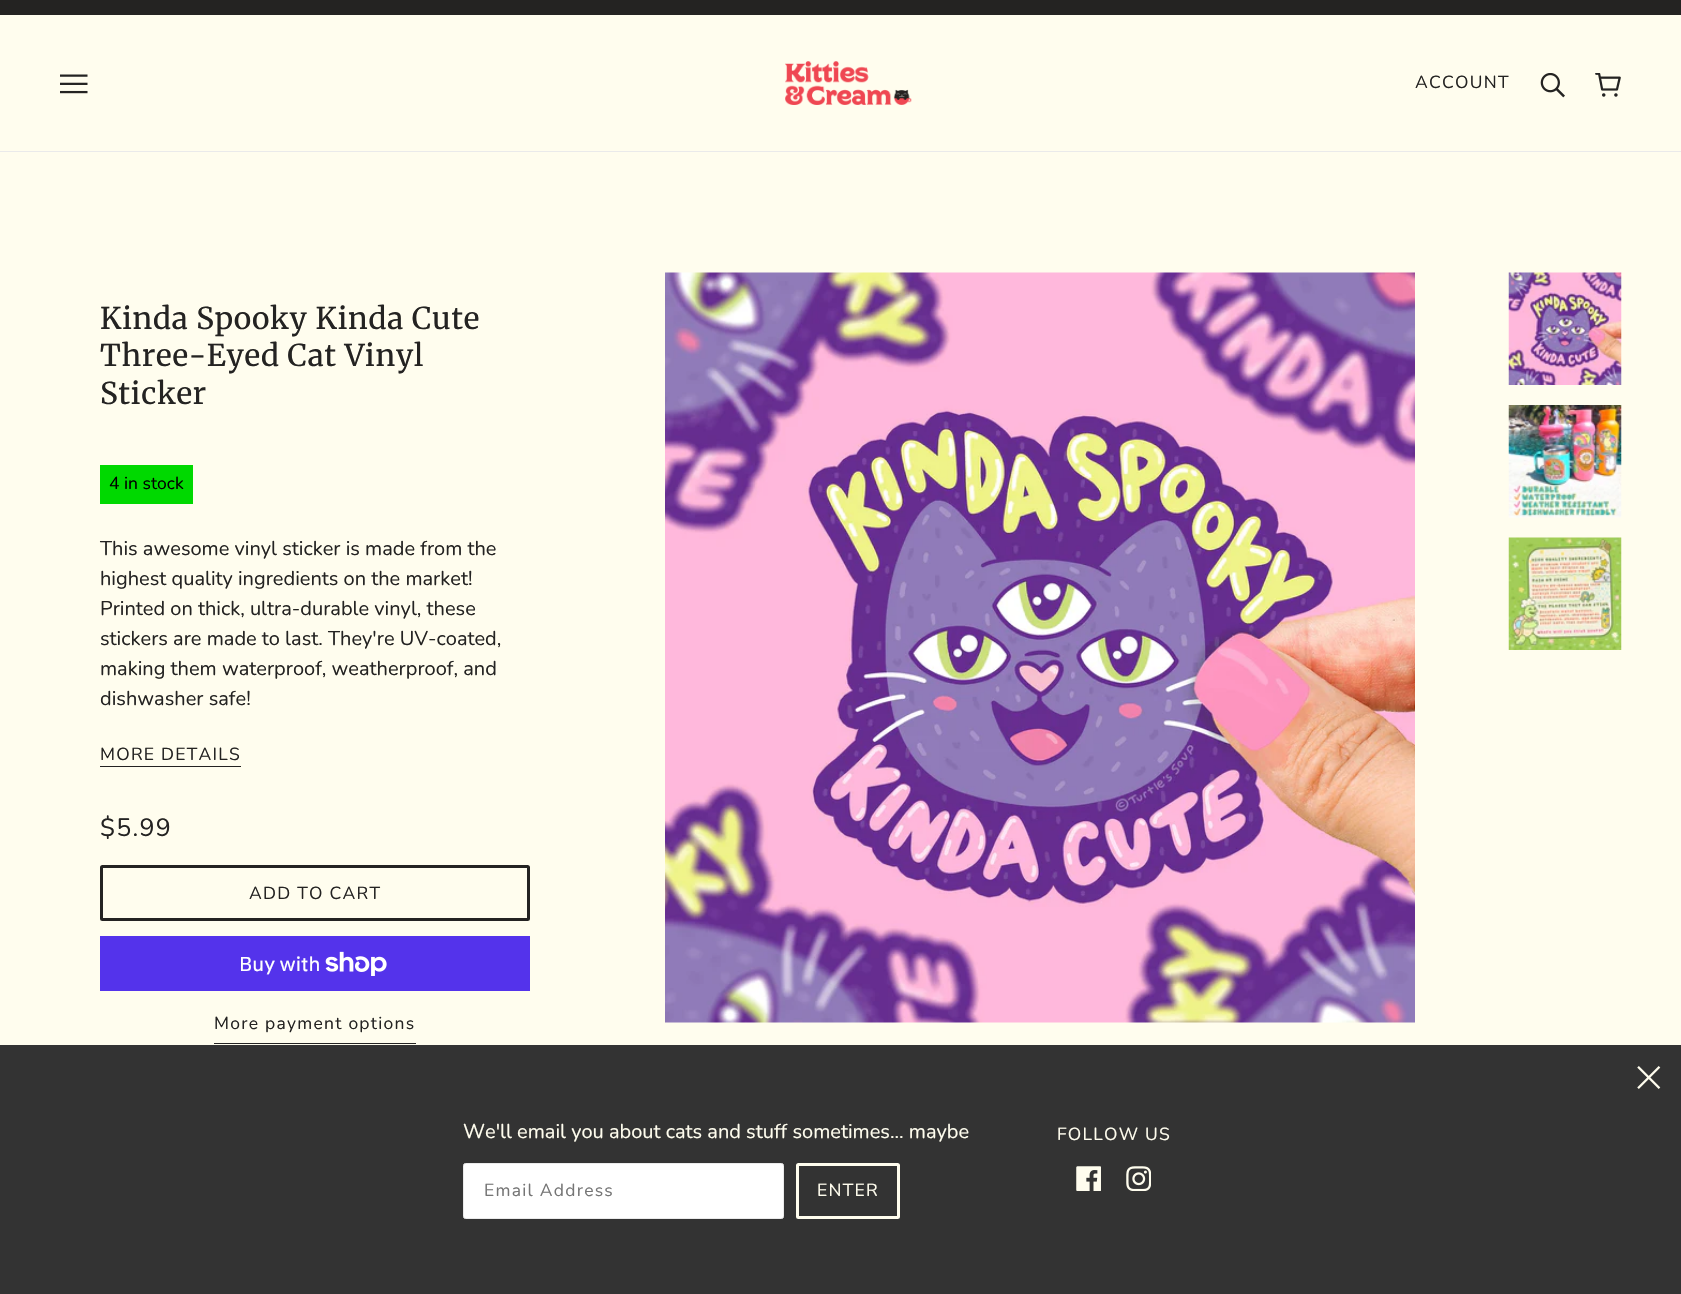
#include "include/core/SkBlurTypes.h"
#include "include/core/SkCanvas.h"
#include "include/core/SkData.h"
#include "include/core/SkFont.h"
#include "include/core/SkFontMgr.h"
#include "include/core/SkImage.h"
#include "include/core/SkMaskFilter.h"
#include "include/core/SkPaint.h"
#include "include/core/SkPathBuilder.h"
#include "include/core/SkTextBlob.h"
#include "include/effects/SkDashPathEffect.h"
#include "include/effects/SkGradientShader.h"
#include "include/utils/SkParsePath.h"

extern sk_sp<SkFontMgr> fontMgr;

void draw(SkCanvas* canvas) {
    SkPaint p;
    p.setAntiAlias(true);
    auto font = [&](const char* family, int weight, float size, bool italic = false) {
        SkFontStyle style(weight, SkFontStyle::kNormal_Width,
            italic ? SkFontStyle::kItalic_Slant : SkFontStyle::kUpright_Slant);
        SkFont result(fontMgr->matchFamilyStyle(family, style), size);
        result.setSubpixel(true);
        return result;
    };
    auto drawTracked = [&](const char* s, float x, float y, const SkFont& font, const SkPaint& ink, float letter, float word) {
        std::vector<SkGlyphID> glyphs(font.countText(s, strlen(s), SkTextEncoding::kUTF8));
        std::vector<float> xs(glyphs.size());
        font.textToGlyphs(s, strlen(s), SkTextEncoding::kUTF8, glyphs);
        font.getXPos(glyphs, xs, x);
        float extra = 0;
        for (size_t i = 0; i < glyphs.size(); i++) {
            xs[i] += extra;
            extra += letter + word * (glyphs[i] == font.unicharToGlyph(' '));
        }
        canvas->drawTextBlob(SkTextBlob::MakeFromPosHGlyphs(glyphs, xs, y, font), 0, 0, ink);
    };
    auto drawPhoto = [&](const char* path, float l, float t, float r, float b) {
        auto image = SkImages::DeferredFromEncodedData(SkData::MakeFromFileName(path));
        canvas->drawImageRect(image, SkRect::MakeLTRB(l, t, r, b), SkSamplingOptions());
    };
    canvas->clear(0xFFFFFDEE);
    p.setColor(0xFF242322);
    canvas->drawRect(SkRect::MakeLTRB(0, 0, 1681, 15), p);
    p.setColor(0xFFEAEAEA);
    canvas->drawRect(SkRect::MakeLTRB(0, 151, 1681, 152), p);
    drawPhoto("media/1.png", 60, 74, 88, 94);
    drawPhoto("media/2.png", 785, 61, 912, 105);
    auto font1 = font("Nunito", 400, 17.5f);
    p.setColor(0xFF242322);
    drawTracked("ACCOUNT", 1415, 88, font1, p, 1.25f, 0);
    drawPhoto("media/3.png", 1540, 73, 1565, 98);
    drawPhoto("media/4.png", 1595, 73, 1621, 97);
    auto font2 = font("Merriweather", 400, 30);
    {
        const struct { const char* s; float x, y; } items[] = {
            {"Kinda Spooky Kinda Cute", 100, 329},
            {"Three-Eyed Cat Vinyl", 100, 366},
            {"Sticker", 100, 404},
        };
        for (auto [s, x, y] : items) {
            drawTracked(s, x, y, font2, p, 0.75f, 0);
        }
    }
    p.setColor(0xFF00D900);
    canvas->drawRect(SkRect::MakeLTRB(100, 465, 193, 504), p);
    p.setColor(0xFF000000);
    canvas->drawString("4 in stock", 109, 489, font1, p);
    auto font3 = font("Nunito", 400, 20);
    p.setColor(0xFF242322);
    {
        const struct { const char* s; float x, y; } items[] = {
            {"This awesome vinyl sticker is made from the", 100, 555},
            {"highest quality ingredients on the market!", 100, 585},
            {"Printed on thick, ultra-durable vinyl, these", 100, 615},
            {"stickers are made to last. They're UV-coated,", 100, 645},
            {"making them waterproof, weatherproof, and", 100, 675},
            {"dishwasher safe!", 100, 705},
        };
        for (auto [s, x, y] : items) {
            canvas->drawString(s, x, y, font3, p);
        }
    }
    drawTracked("MORE DETAILS", 100, 760, font1, p, 1.25f, 0);
    canvas->drawRect(SkRect::MakeLTRB(100, 766, 241, 767), p);
    auto font4 = font("Nunito", 400, 25);
    drawTracked("$5.99", 100, 836, font4, p, 1.25f, 0);
    p.setStyle(SkPaint::kStroke_Style);
    p.setStrokeWidth(3);
    canvas->drawRoundRect(SkRect::MakeLTRB(101.5f, 866.5f, 528.5f, 919.5f), 1, 1, p);
    p.setStyle(SkPaint::kFill_Style);
    drawTracked("ADD TO CART", 249, 899, font1, p, 1.25f, 0);
    p.setColor(0xFF5433EB);
    canvas->drawRect(SkRect::MakeLTRB(100, 936, 530, 991), p);
    auto font5 = font("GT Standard", 400, 20);
    p.setColor(0xFFFFFFFF);
    canvas->drawString("Buy with", 239, 971, font5, p);
    drawPhoto("media/5.png", 325, 951, 387, 976);
    p.setColor(0xFF242322);
    canvas->drawRect(SkRect::MakeLTRB(214, 1043, 416, 1044), p);
    drawTracked("More payment options", 214, 1029, font1, p, 1.25f, 0);
    drawPhoto("media/6.png", 665, 272, 1415, 1023);
    drawPhoto("media/7.png", 1508, 272, 1622, 385);
    drawPhoto("media/8.png", 1508, 405, 1622, 518);
    drawPhoto("media/9.png", 1508, 537, 1622, 650);
    p.setColor(0xFF333333);
    canvas->drawRect(SkRect::MakeLTRB(0, 1045, 1681, 1294), p);
    drawPhoto("media/10.png", 1637, 1066, 1661, 1089);
    p.setColor(0xFFFFFDEE);
    canvas->drawString("We'll email you about cats and stuff sometimes... maybe", 463, 1138, font3, p);
    p.setColor(0xFFFFFFFF);
    canvas->drawRoundRect(SkRect::MakeLTRB(463.5f, 1163.5f, 783.5f, 1218.5f), 2, 2, p);
    p.setStyle(SkPaint::kStroke_Style);
    p.setStrokeWidth(1);
    p.setColor(0xFFEAEAEA);
    canvas->drawRoundRect(SkRect::MakeLTRB(463.5f, 1163.5f, 783.5f, 1218.5f), 2, 2, p);
    p.setStyle(SkPaint::kFill_Style);
    p.setColor(0xFF757575);
    drawTracked("Email Address", 484, 1196, font1, p, 1.25f, 0);
    p.setStyle(SkPaint::kStroke_Style);
    p.setStrokeWidth(3);
    p.setColor(0xFFFFFDEE);
    canvas->drawRoundRect(SkRect::MakeLTRB(797.5f, 1164.5f, 898.5f, 1217.5f), 1, 1, p);
    p.setStyle(SkPaint::kFill_Style);
    drawTracked("ENTER", 817, 1196, font1, p, 1.25f, 0);
    drawTracked("FOLLOW US", 1057, 1140, font1, p, 1.25f, 0);
    drawPhoto("media/11.png", 1076, 1166, 1101, 1191);
    drawPhoto("media/12.png", 1126, 1166, 1151, 1191);
}
